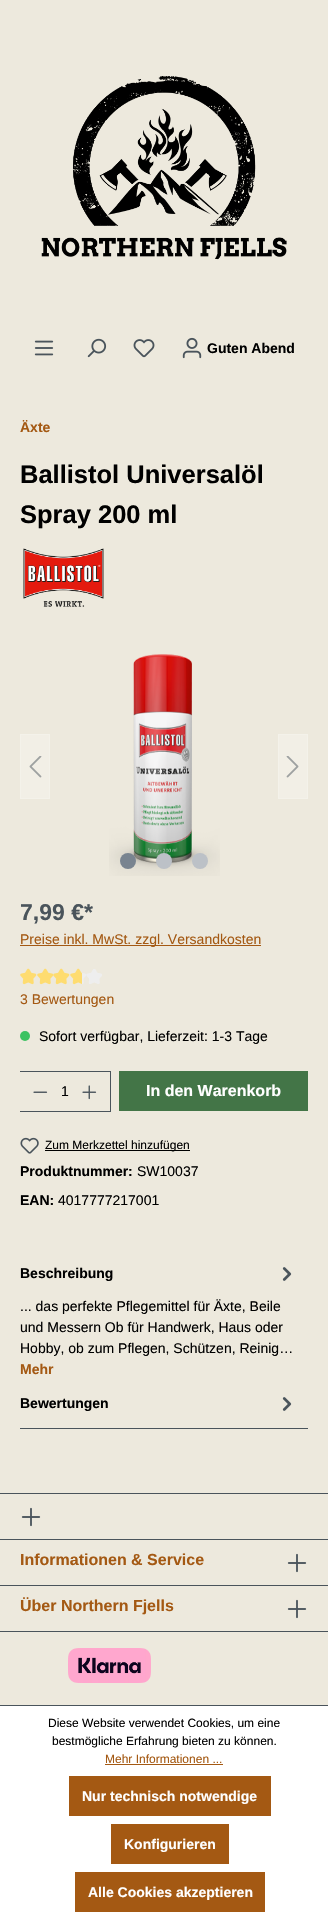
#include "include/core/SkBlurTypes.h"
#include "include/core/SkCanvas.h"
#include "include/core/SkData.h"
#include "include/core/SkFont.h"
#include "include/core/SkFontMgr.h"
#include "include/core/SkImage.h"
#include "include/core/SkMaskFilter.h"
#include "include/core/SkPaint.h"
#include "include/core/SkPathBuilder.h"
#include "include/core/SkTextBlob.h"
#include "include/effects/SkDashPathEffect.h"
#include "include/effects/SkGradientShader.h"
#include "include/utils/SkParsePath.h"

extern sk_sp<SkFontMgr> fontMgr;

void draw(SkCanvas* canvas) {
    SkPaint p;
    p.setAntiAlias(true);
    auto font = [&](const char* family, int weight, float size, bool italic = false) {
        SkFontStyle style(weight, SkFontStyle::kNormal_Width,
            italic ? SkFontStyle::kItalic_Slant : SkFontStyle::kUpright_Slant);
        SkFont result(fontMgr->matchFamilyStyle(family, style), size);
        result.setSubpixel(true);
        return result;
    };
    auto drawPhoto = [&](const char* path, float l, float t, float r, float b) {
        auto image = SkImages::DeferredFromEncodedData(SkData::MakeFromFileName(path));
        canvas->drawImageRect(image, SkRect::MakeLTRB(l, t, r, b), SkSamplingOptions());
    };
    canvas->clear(0xFFEDE9DD);
    drawPhoto("media/1.png", 41, 76, 287, 260);
    drawPhoto("media/2.png", 34, 340, 54, 356);
    drawPhoto("media/3.png", 87, 338, 107, 358);
    drawPhoto("media/4.png", 133, 339, 155, 358);
    drawPhoto("media/5.png", 182, 337, 202, 359);
    auto font1 = font("Liberation Sans", 700, 14);
    p.setColor(0xFF000000);
    canvas->drawString("Guten Abend", 207, 353, font1, p);
    p.setColor(0xFFA45913);
    canvas->drawString("Äxte", 20, 432, font1, p);
    auto font2 = font("Liberation Sans", 700, 25.5f);
    p.setColor(0xFF000000);
    canvas->drawString("Ballistol Universalöl", 20, 483, font2, p);
    canvas->drawString("Spray 200 ml", 20, 523, font2, p);
    drawPhoto("media/6.png", 23, 548, 104, 607);
    drawPhoto("media/7.png", 109, 654, 220, 876);
    p.setColor(0xFFF2EFE6);
    canvas->drawRect(SkRect::MakeLTRB(20.5f, 734.5f, 49.5f, 798.5f), p);
    p.setStyle(SkPaint::kStroke_Style);
    p.setStrokeWidth(1);
    p.setColor(0xFFF4F2EA);
    canvas->drawRect(SkRect::MakeLTRB(20.5f, 734.5f, 49.5f, 798.5f), p);
    drawPhoto("media/8.png", 29, 756, 42, 778);
    p.setStyle(SkPaint::kFill_Style);
    p.setColor(0xFFF2EFE6);
    canvas->drawRect(SkRect::MakeLTRB(278.5f, 734.5f, 307.5f, 798.5f), p);
    p.setStyle(SkPaint::kStroke_Style);
    p.setColor(0xFFF4F2EA);
    canvas->drawRect(SkRect::MakeLTRB(278.5f, 734.5f, 307.5f, 798.5f), p);
    drawPhoto("media/9.png", 286, 756, 299, 778);
    p.setStyle(SkPaint::kFill_Style);
    p.setColor(0xFF798490);
    canvas->drawCircle(128, 861, 8, p);
    p.setColor(0xFFBCC1C7);
    canvas->drawCircle(164, 861, 8, p);
    canvas->drawCircle(200, 861, 8, p);
    auto font3 = font("Liberation Sans", 700, 23);
    p.setColor(0xFF4A545B);
    canvas->drawString("7,99 €*", 20, 920, font3, p);
    p.setColor(0xFFA45913);
    canvas->drawRect(SkRect::MakeLTRB(20, 945, 261, 946), p);
    auto font4 = font("Liberation Sans", 400, 14);
    canvas->drawString("Preise inkl. MwSt. zzgl. Versandkosten", 20, 944, font4, p);
    drawPhoto("media/10.png", 20, 968, 37, 985);
    drawPhoto("media/11.png", 37, 968, 53, 985);
    drawPhoto("media/10.png", 53, 968, 70, 985);
    drawPhoto("media/13.png", 70, 969, 86, 984);
    drawPhoto("media/12.png", 70, 968, 82, 985);
    drawPhoto("media/13.png", 86, 969, 102, 984);
    canvas->drawString("3 Bewertungen", 20, 1004, font4, p);
    p.setColor(0xFF3CC261);
    canvas->drawCircle(25, 1036, 5, p);
    p.setColor(0xFF000000);
    canvas->drawString("Sofort verfügbar, Lieferzeit: 1-3 Tage", 39, 1041, font4, p);
    drawPhoto("media/14.png", 33, 1091, 48, 1093);
    p.setColor(0xFF4A545B);
    canvas->drawRect(SkRect::MakeLTRB(20, 1071, 111, 1072), p);
    canvas->drawRect(SkRect::MakeLTRB(20, 1111, 70, 1112), p);
    p.setColor(0xFF000000);
    canvas->drawString("1", 61, 1096, font4, p);
    p.setColor(0xFF4A545B);
    canvas->drawRect(SkRect::MakeLTRB(110, 1071, 111, 1112), p);
    canvas->drawRect(SkRect::MakeLTRB(69, 1111, 111, 1112), p);
    drawPhoto("media/15.png", 82, 1085, 97, 1100);
    p.setColor(0xFF437547);
    canvas->drawRect(SkRect::MakeLTRB(119, 1071, 308, 1111), p);
    auto font5 = font("Liberation Sans", 700, 16);
    p.setColor(0xFFFFFFFF);
    canvas->drawString("In den Warenkorb", 146, 1096, font5, p);
    drawPhoto("media/16.png", 20, 1137, 39, 1154);
    p.setColor(0xFF000000);
    canvas->drawRect(SkRect::MakeLTRB(45, 1150, 190, 1151), p);
    auto font6 = font("Liberation Sans", 400, 12);
    canvas->drawString("Zum Merkzettel hinzufügen", 45, 1149, font6, p);
    canvas->drawString("Produktnummer:", 20, 1176, font1, p);
    canvas->drawString("SW10037", 137, 1176, font4, p);
    canvas->drawString("EAN:", 20, 1205, font1, p);
    canvas->drawString("4017777217001", 58, 1205, font4, p);
    p.setColor(0xFF4A545B);
    canvas->drawRect(SkRect::MakeLTRB(20, 1428, 308, 1429), p);
    p.setColor(0xFF000000);
    canvas->drawString("Beschreibung", 20, 1278, font1, p);
    drawPhoto("media/17.png", 282, 1267, 292, 1281);
    {
        const struct { const char* s; float x, y; } items[] = {
            {"... das perfekte Pflegemittel für Äxte, Beile", 20, 1311},
            {"und Messern Ob für Handwerk, Haus oder", 20, 1332},
            {"Hobby, ob zum Pflegen, Schützen, Reinig…", 20, 1353},
        };
        for (auto [s, x, y] : items) {
            canvas->drawString(s, x, y, font4, p);
        }
    }
    p.setColor(0xFFA45913);
    canvas->drawString("Mehr", 20, 1374, font1, p);
    p.setColor(0xFF000000);
    canvas->drawString("Bewertungen", 20, 1408, font1, p);
    drawPhoto("media/17.png", 282, 1397, 292, 1411);
    p.setColor(0xFF4A545B);
    canvas->drawRect(SkRect::MakeLTRB(0, 1493, 328, 1494), p);
    canvas->drawRect(SkRect::MakeLTRB(0, 1539, 328, 1540), p);
    drawPhoto("media/18.png", 21, 1507, 41, 1527);
    canvas->drawRect(SkRect::MakeLTRB(0, 1585, 328, 1586), p);
    p.setColor(0xFFA45913);
    canvas->drawString("Informationen & Service", 20, 1565, font5, p);
    drawPhoto("media/18.png", 287, 1553, 307, 1573);
    p.setColor(0xFF4A545B);
    canvas->drawRect(SkRect::MakeLTRB(0, 1631, 328, 1632), p);
    p.setColor(0xFFA45913);
    canvas->drawString("Über Northern Fjells", 20, 1611, font5, p);
    drawPhoto("media/18.png", 287, 1599, 307, 1619);
    drawPhoto("media/19.png", 68, 1648, 151, 1683);
    p.setColor(0xFFFFFFFF);
    canvas->drawRect(SkRect::MakeLTRB(0, 1706, 328, 1920), p);
    p.setColor(0xFF4A545B);
    canvas->drawRect(SkRect::MakeLTRB(0, 1705, 328, 1706), p);
    p.setColor(0xFF000000);
    canvas->drawString("Diese Website verwendet Cookies, um eine", 48, 1727, font6, p);
    canvas->drawString("bestmögliche Erfahrung bieten zu können.", 52, 1745, font6, p);
    p.setColor(0xFFA45913);
    canvas->drawString("Mehr Informationen ...", 105, 1763, font6, p);
    canvas->drawRect(SkRect::MakeLTRB(105, 1764, 223, 1765), p);
    canvas->drawRect(SkRect::MakeLTRB(69, 1776, 271, 1816), p);
    p.setColor(0xFFFFFFFF);
    canvas->drawString("Nur technisch notwendige", 82, 1801, font1, p);
    p.setColor(0xFFA45913);
    canvas->drawRect(SkRect::MakeLTRB(111, 1824, 229, 1864), p);
    p.setColor(0xFFFFFFFF);
    canvas->drawString("Konfigurieren", 124, 1849, font1, p);
    p.setColor(0xFFA45913);
    canvas->drawRect(SkRect::MakeLTRB(75, 1872, 265, 1912), p);
    p.setColor(0xFFFFFFFF);
    canvas->drawString("Alle Cookies akzeptieren", 88, 1897, font1, p);
}
